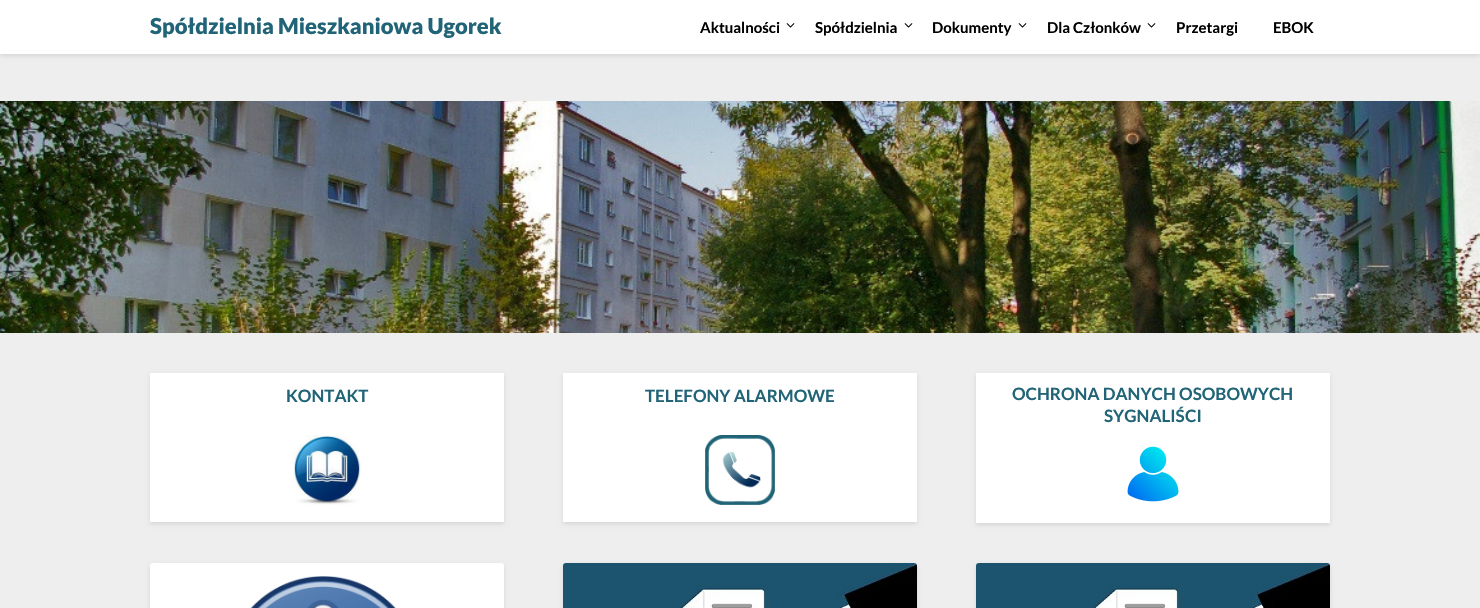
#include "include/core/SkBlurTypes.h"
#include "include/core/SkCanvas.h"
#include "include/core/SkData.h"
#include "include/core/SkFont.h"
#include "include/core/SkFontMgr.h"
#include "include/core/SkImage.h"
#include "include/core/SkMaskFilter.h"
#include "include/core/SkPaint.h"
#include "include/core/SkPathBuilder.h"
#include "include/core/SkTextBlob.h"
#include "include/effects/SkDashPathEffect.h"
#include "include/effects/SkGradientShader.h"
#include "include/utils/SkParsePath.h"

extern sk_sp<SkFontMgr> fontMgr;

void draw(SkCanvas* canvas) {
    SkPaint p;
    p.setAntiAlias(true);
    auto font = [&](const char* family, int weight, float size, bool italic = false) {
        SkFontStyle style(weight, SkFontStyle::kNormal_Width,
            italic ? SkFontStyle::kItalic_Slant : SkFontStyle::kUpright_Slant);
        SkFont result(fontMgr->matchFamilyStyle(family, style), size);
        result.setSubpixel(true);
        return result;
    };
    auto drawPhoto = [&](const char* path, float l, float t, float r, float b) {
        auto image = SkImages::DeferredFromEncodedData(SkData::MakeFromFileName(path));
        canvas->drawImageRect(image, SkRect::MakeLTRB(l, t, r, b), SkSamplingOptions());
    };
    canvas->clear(0xFFEEEEEE);
    p.setColor(0x1A000000);
    p.setMaskFilter(SkMaskFilter::MakeBlur(kNormal_SkBlurStyle, 2));
    canvas->drawRect(SkRect::MakeLTRB(0, 2, 1480, 56), p);
    p.setMaskFilter(nullptr);
    p.setColor(0xFFFFFFFF);
    canvas->drawRect(SkRect::MakeLTRB(0, 0, 1480, 54), p);
    auto font1 = font("Lato", 900, 22);
    p.setColor(0xFF216477);
    canvas->drawString("Spółdzielnia Mieszkaniowa Ugorek", 150, 34, font1, p);
    auto font2 = font("Lato", 700, 15);
    p.setColor(0xFF000000);
    canvas->drawString("Aktualności", 700, 33, font2, p);
    drawPhoto("media/1.png", 786, 23, 795, 28);
    canvas->drawString("Spółdzielnia", 815, 33, font2, p);
    drawPhoto("media/1.png", 904, 23, 913, 28);
    canvas->drawString("Dokumenty", 932, 33, font2, p);
    drawPhoto("media/1.png", 1018, 23, 1027, 28);
    canvas->drawString("Dla Członków", 1047, 33, font2, p);
    drawPhoto("media/1.png", 1147, 23, 1156, 28);
    canvas->drawString("Przetargi", 1176, 33, font2, p);
    canvas->drawString("EBOK", 1273, 33, font2, p);
    drawPhoto("media/2.png", 0, 101, 1480, 333);
    auto font3 = font("Lato", 400, 16);
    p.setColor(0xFF5B664C);
    canvas->drawString("slider3", 716, 115, font3, p);
    p.setColor(0x1A000000);
    p.setMaskFilter(SkMaskFilter::MakeBlur(kNormal_SkBlurStyle, 2));
    canvas->drawRect(SkRect::MakeLTRB(150, 375, 504, 524), p);
    p.setMaskFilter(nullptr);
    p.setColor(0xFFFFFFFF);
    canvas->drawRect(SkRect::MakeLTRB(150, 373, 504, 522), p);
    auto font4 = font("Lato", 700, 17);
    p.setColor(0xFF216477);
    canvas->drawString("KONTAKT", 286, 402, font4, p);
    drawPhoto("media/3.png", 292, 435, 362, 505);
    p.setColor(0x1A000000);
    p.setMaskFilter(SkMaskFilter::MakeBlur(kNormal_SkBlurStyle, 2));
    canvas->drawRect(SkRect::MakeLTRB(563, 375, 917, 524), p);
    p.setMaskFilter(nullptr);
    p.setColor(0xFFFFFFFF);
    canvas->drawRect(SkRect::MakeLTRB(563, 373, 917, 522), p);
    p.setColor(0xFF216477);
    canvas->drawString("TELEFONY ALARMOWE", 645, 402, font4, p);
    drawPhoto("media/4.png", 705, 435, 775, 505);
    p.setColor(0x1A000000);
    p.setMaskFilter(SkMaskFilter::MakeBlur(kNormal_SkBlurStyle, 2));
    canvas->drawRect(SkRect::MakeLTRB(976, 375, 1330, 525), p);
    p.setMaskFilter(nullptr);
    p.setColor(0xFFFFFFFF);
    canvas->drawRect(SkRect::MakeLTRB(976, 373, 1330, 523), p);
    p.setColor(0xFF216477);
    canvas->drawString("OCHRONA DANYCH OSOBOWYCH", 1012, 400, font4, p);
    canvas->drawString("SYGNALIŚCI", 1104, 422, font4, p);
    drawPhoto("media/5.png", 1127, 446, 1179, 502);
    p.setColor(0x1A000000);
    p.setMaskFilter(SkMaskFilter::MakeBlur(kNormal_SkBlurStyle, 2));
    canvas->drawRoundRect(SkRect::MakeLTRB(150, 565, 504, 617), 3, 3, p);
    p.setMaskFilter(nullptr);
    drawPhoto("media/6.png", 150, 563, 504, 608);
    p.setMaskFilter(SkMaskFilter::MakeBlur(kNormal_SkBlurStyle, 2));
    canvas->drawRoundRect(SkRect::MakeLTRB(563, 565, 917, 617), 3, 3, p);
    p.setMaskFilter(nullptr);
    drawPhoto("media/7.png", 563, 563, 917, 608);
    p.setMaskFilter(SkMaskFilter::MakeBlur(kNormal_SkBlurStyle, 2));
    canvas->drawRoundRect(SkRect::MakeLTRB(976, 565, 1330, 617), 3, 3, p);
    p.setMaskFilter(nullptr);
    drawPhoto("media/7.png", 976, 563, 1330, 608);
}
